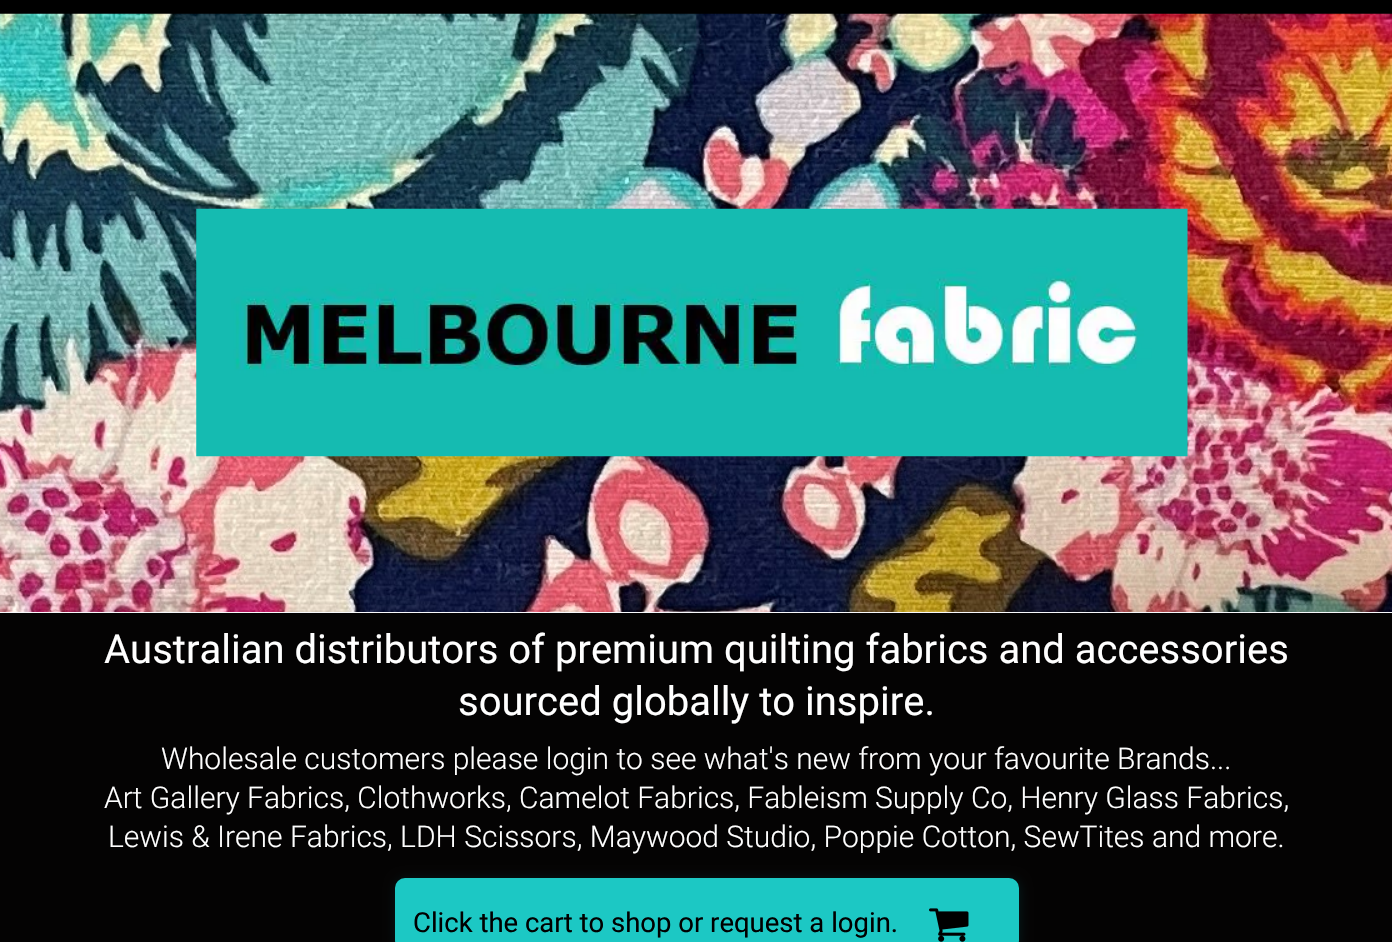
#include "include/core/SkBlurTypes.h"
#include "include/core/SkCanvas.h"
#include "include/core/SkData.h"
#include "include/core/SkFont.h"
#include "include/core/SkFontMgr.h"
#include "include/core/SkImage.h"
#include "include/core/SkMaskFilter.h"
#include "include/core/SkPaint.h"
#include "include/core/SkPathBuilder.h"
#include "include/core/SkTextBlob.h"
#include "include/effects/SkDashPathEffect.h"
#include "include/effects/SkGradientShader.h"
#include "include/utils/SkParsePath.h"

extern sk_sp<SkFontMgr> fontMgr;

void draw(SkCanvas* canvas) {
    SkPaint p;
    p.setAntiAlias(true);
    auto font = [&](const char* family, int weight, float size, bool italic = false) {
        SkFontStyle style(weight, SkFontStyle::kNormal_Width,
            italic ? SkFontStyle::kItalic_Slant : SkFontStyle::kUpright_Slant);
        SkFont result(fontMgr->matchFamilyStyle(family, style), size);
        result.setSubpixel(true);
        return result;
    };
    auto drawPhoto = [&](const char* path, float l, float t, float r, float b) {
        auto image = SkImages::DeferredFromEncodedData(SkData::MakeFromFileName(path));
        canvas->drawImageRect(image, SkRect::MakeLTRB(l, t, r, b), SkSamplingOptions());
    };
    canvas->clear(0xFF000000);
    drawPhoto("media/1.png", 0, 13, 1392, 612);
    drawPhoto("media/2.png", 196, 208, 1188, 457);
    p.setColor(0xFFF8F9FC);
    canvas->drawRect(SkRect::MakeLTRB(0, 612, 1392, 613), p);
    p.setColor(0xFF040303);
    canvas->drawRect(SkRect::MakeLTRB(0, 613, 1392, 942), p);
    auto font1 = font("Roboto", 400, 40);
    p.setColor(0xFFFFFFFF);
    canvas->drawString("Australian distributors of premium quilting fabrics and accessories", 104, 663, font1, p);
    canvas->drawString("sourced globally to inspire.", 458, 715, font1, p);
    auto font2 = font("Roboto", 300, 30);
    {
        const struct { const char* s; float x, y; } items[] = {
            {"Wholesale customers please login to see what's new from your favourite Brands...", 161, 769},
            {"Art Gallery Fabrics, Clothworks, Camelot Fabrics, Fableism Supply Co, Henry Glass Fabrics,", 104, 808},
            {"Lewis & Irene Fabrics, LDH Scissors, Maywood Studio, Poppie Cotton, SewTites and more.", 108, 847},
        };
        for (auto [s, x, y] : items) {
            canvas->drawString(s, x, y, font2, p);
        }
    }
    p.setColor(0x2B088B94);
    p.setMaskFilter(SkMaskFilter::MakeBlur(kNormal_SkBlurStyle, 6));
    canvas->drawRoundRect(SkRect::MakeLTRB(396, 879, 1020, 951), 10, 10, p);
    p.setMaskFilter(nullptr);
    p.setColor(0xFF1CC8C4);
    canvas->drawRoundRect(SkRect::MakeLTRB(395, 878, 1019, 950), 10, 10, p);
    auto font3 = font("Roboto", 400, 27.5f);
    p.setColor(0xFF000000);
    canvas->drawString("Click the cart to shop or request a login.", 413, 932, font3, p);
    drawPhoto("media/3.png", 929, 908, 969, 942);
}
